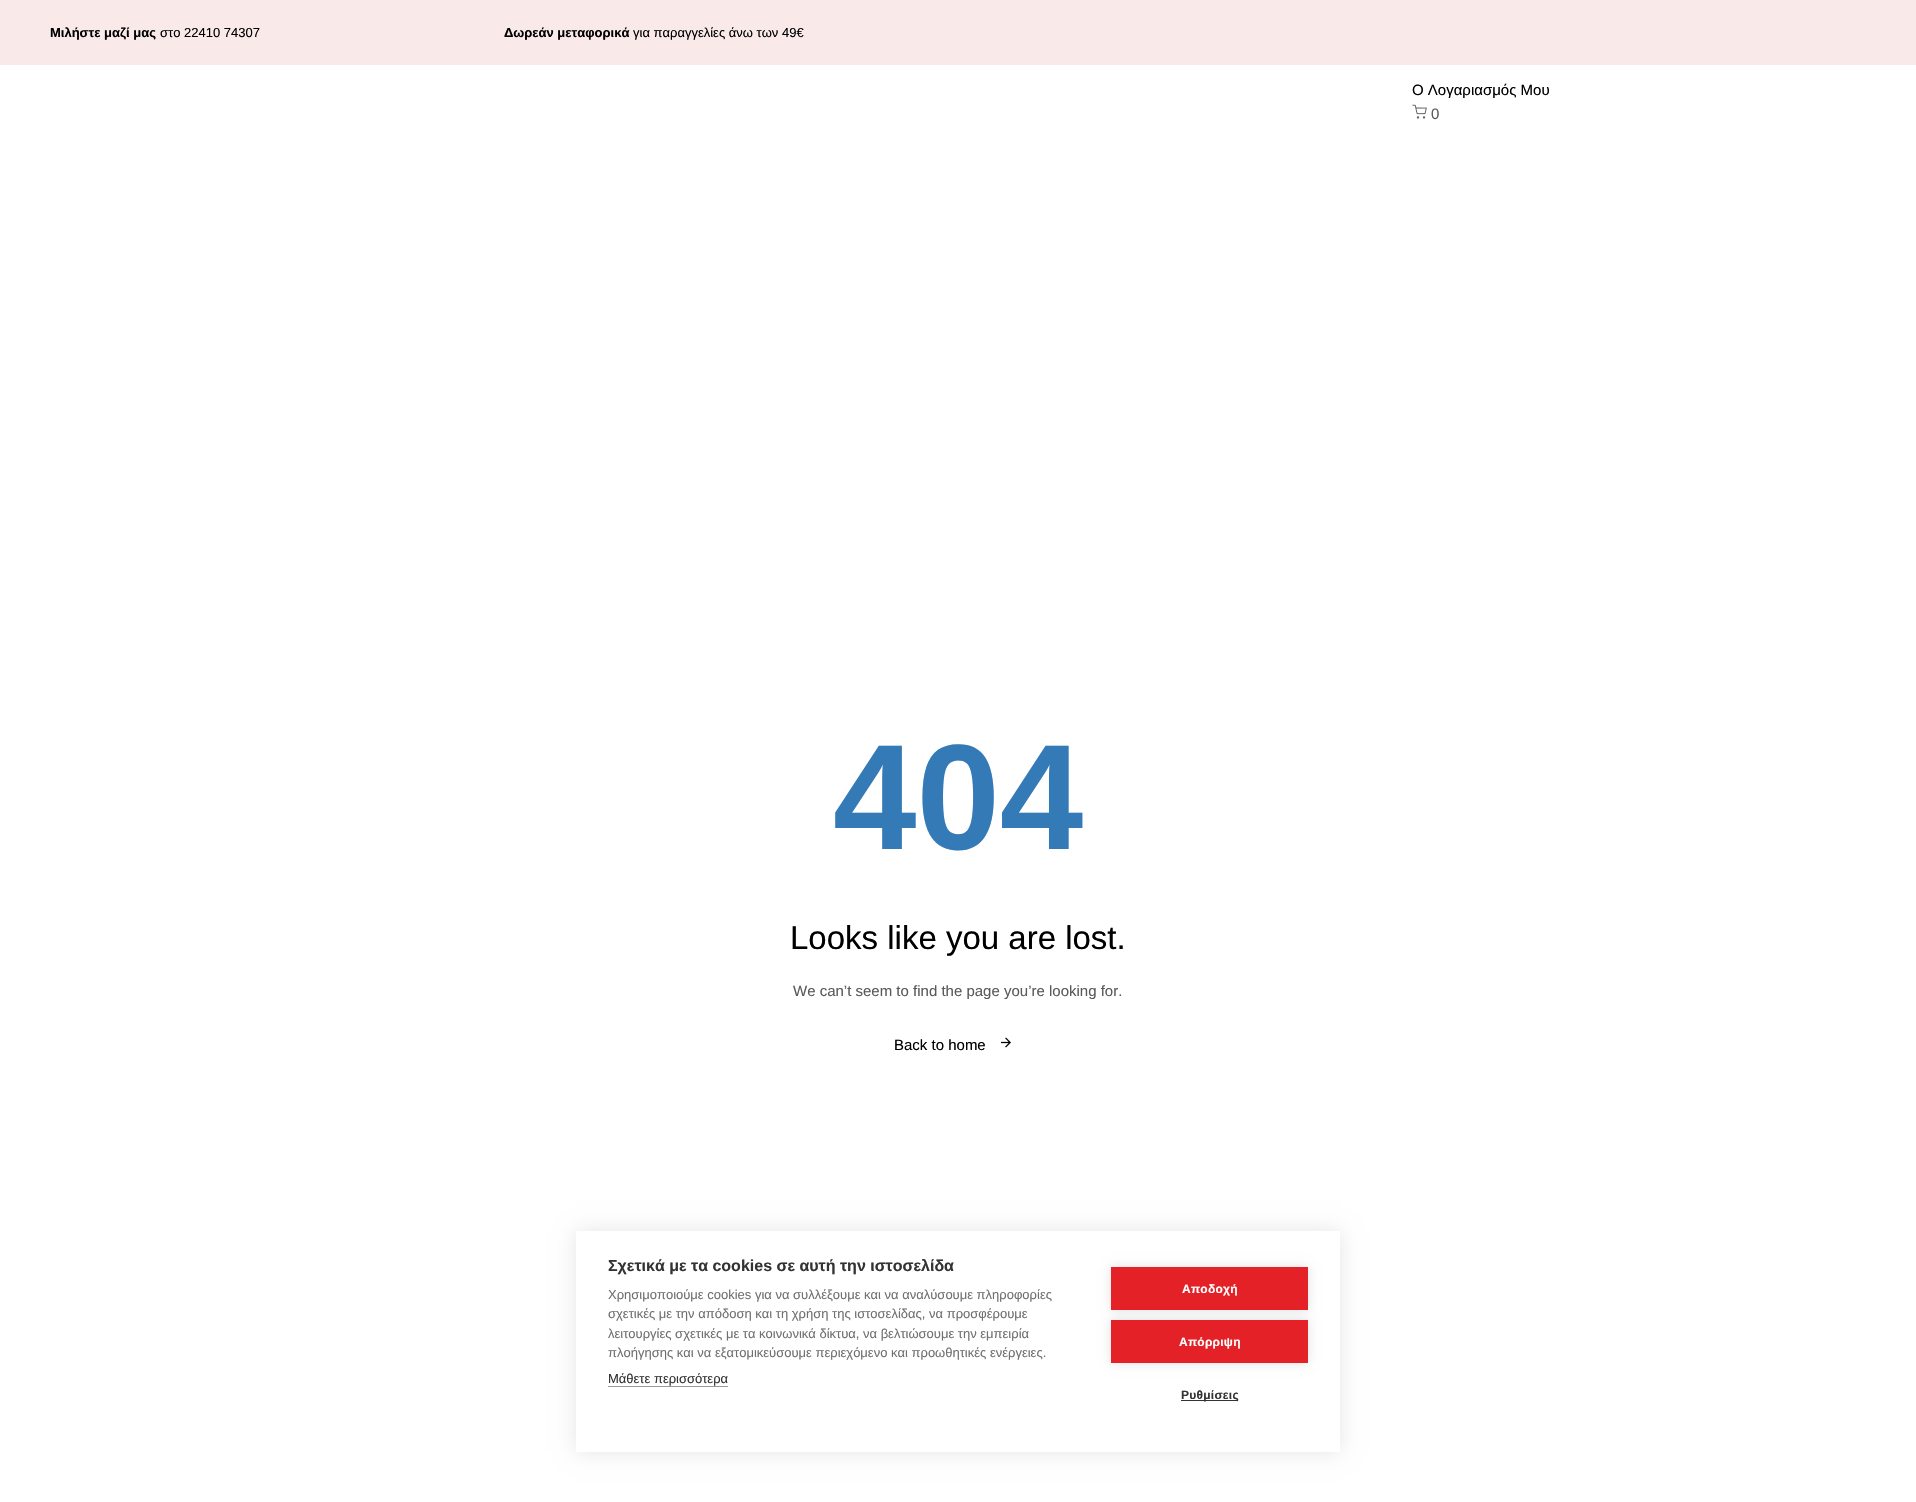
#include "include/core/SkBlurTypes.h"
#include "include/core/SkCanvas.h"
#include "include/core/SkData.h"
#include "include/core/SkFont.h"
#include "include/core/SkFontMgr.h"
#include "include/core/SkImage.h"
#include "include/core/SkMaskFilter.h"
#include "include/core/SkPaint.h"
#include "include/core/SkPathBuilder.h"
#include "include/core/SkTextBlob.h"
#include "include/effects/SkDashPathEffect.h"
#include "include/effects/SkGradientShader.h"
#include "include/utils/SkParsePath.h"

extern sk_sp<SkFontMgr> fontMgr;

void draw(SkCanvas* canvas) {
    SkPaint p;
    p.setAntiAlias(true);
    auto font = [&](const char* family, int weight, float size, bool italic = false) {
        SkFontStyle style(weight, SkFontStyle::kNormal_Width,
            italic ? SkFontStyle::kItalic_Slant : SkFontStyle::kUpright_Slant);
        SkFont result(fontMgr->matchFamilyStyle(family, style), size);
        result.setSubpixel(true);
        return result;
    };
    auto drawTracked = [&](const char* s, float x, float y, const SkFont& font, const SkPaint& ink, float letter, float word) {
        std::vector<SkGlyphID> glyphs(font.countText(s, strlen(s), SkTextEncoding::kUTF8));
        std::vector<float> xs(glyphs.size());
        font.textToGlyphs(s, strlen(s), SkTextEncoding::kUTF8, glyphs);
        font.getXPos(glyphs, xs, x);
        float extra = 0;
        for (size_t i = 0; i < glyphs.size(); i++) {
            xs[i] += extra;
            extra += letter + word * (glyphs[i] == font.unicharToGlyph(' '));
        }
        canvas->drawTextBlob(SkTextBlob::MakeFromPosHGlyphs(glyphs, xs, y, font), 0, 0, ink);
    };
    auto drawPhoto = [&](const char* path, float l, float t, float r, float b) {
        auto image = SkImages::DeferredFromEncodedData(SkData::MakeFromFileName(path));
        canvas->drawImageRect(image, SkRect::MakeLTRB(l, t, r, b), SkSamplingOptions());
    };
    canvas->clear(0xFFFFFFFF);
    p.setColor(0xFFF9EAE9);
    canvas->drawRect(SkRect::MakeLTRB(0, 0, 1916, 65), p);
    auto font1 = font("Liberation Sans", 700, 13);
    p.setColor(0xFF000000);
    canvas->drawString("Μιλήστε μαζί μας", 50, 37, font1, p);
    auto font2 = font("Liberation Sans", 400, 13);
    canvas->drawString("στο 22410 74307", 160, 37, font2, p);
    canvas->drawString("Δωρεάν μεταφορικά", 504, 37, font1, p);
    canvas->drawString("για παραγγελίες άνω των 49€", 633, 37, font2, p);
    auto font3 = font("Liberation Sans", 400, 15);
    canvas->drawString("Ο Λογαριασμός Μου", 1412, 95, font3, p);
    drawPhoto("media/1.png", 1412, 104, 1427, 119);
    p.setColor(0xFF5A5A5A);
    canvas->drawString("0", 1431, 119, font3, p);
    auto font4 = font("Liberation Sans", 700, 150);
    p.setColor(0xFF337AB7);
    canvas->drawString("404", 833, 849, font4, p);
    auto font5 = font("Liberation Sans", 400, 33);
    p.setColor(0xFF000000);
    canvas->drawString("Looks like you are lost.", 790, 949, font5, p);
    p.setColor(0xFF5A5A5A);
    canvas->drawString("We can’t seem to find the page you’re looking for.", 793, 996, font3, p);
    p.setColor(0xFF000000);
    canvas->drawString("Back to home", 894, 1050, font3, p);
    drawPhoto("media/2.png", 1001, 1037, 1011, 1048);
    canvas->save();
    canvas->clipPath(SkPathBuilder(SkPathFillType::kEvenOdd).moveTo(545, 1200).lineTo(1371, 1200).lineTo(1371, 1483).lineTo(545, 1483).close().moveTo(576, 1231).lineTo(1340, 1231).lineTo(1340, 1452).lineTo(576, 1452).close().detach(), true);
    p.setColor(0x1A000000);
    p.setMaskFilter(SkMaskFilter::MakeBlur(kNormal_SkBlurStyle, 10));
    canvas->drawRect(SkRect::MakeLTRB(576, 1231, 1340, 1452), p);
    p.setMaskFilter(nullptr);
    canvas->restore();
    auto font6 = font("Liberation Sans", 700, 16);
    p.setColor(0xFF333333);
    canvas->drawString("Σχετικά με τα cookies σε αυτή την ιστοσελίδα", 608, 1271, font6, p);
    p.setColor(0xFF707070);
    {
        const struct { const char* s; float x, y; } items[] = {
            {"Χρησιμοποιούμε cookies για να συλλέξουμε και να αναλύσουμε πληροφορίες", 608, 1299},
            {"σχετικές με την απόδοση και τη χρήση της ιστοσελίδας, να προσφέρουμε", 608, 1318},
            {"λειτουργίες σχετικές με τα κοινωνικά δίκτυα, να βελτιώσουμε την εμπειρία", 608, 1338},
            {"πλοήγησης και να εξατομικεύσουμε περιεχόμενο και προωθητικές ενέργειες.", 608, 1357},
        };
        for (auto [s, x, y] : items) {
            canvas->drawString(s, x, y, font2, p);
        }
    }
    p.setColor(0xFF333333);
    canvas->drawString("Μάθετε περισσότερα", 608, 1383, font2, p);
    p.setColor(0xFF999999);
    canvas->drawRect(SkRect::MakeLTRB(608, 1386, 728, 1387), p);
    p.setColor(0x1F000000);
    p.setMaskFilter(SkMaskFilter::MakeBlur(kNormal_SkBlurStyle, 5));
    canvas->drawRect(SkRect::MakeLTRB(1111, 1267, 1308, 1310), p);
    p.setMaskFilter(nullptr);
    p.setColor(0xFFE42127);
    canvas->drawRect(SkRect::MakeLTRB(1111, 1267, 1308, 1310), p);
    auto font7 = font("Liberation Sans", 700, 12);
    p.setColor(0xFFFFFFFF);
    drawTracked("Αποδοχή", 1182, 1293, font7, p, 0.25f, 0);
    p.setColor(0x1F000000);
    p.setMaskFilter(SkMaskFilter::MakeBlur(kNormal_SkBlurStyle, 5));
    canvas->drawRect(SkRect::MakeLTRB(1111, 1320, 1308, 1363), p);
    p.setMaskFilter(nullptr);
    p.setColor(0xFFE42127);
    canvas->drawRect(SkRect::MakeLTRB(1111, 1320, 1308, 1363), p);
    p.setColor(0xFFFFFFFF);
    drawTracked("Απόρριψη", 1179, 1346, font7, p, 0.25f, 0);
    p.setColor(0xFF333333);
    canvas->drawRect(SkRect::MakeLTRB(1181, 1400, 1238, 1401), p);
    drawTracked("Ρυθμίσεις", 1181, 1399, font7, p, 0.25f, 0);
}
